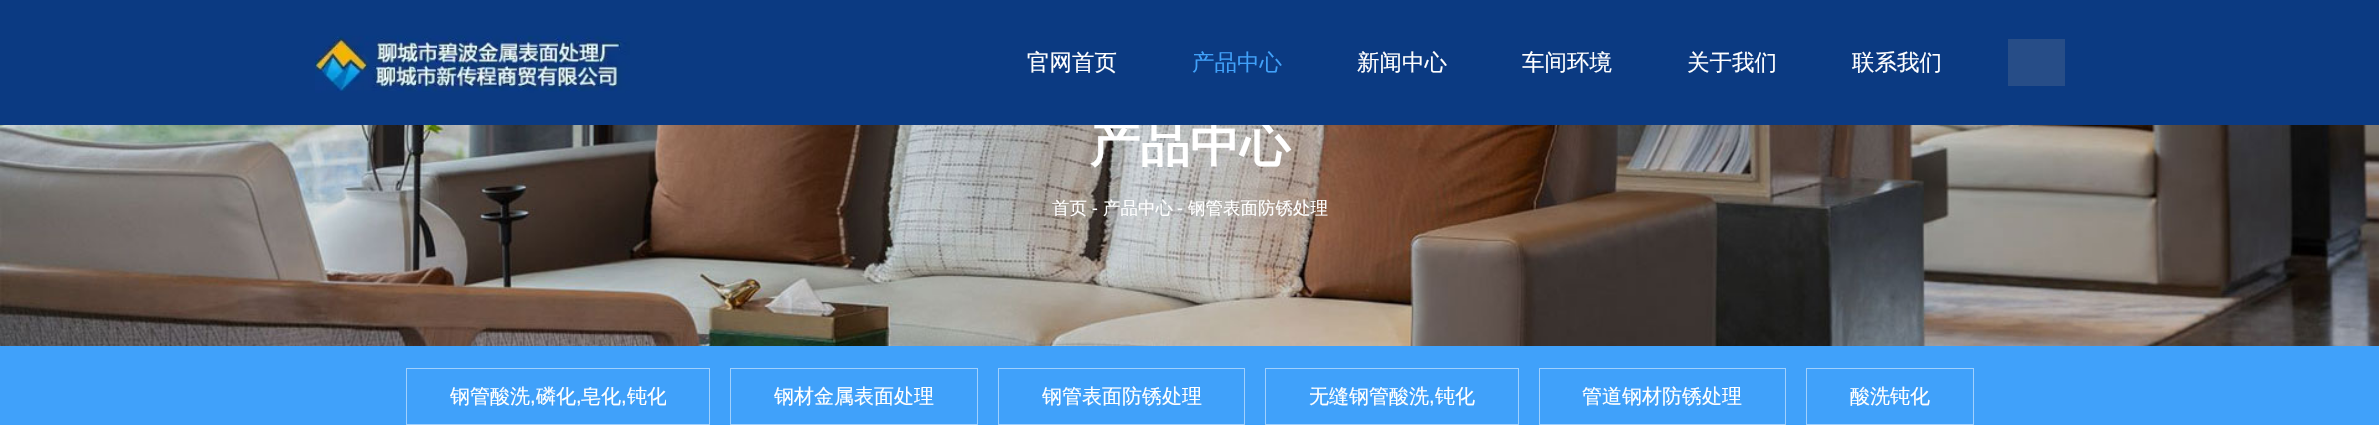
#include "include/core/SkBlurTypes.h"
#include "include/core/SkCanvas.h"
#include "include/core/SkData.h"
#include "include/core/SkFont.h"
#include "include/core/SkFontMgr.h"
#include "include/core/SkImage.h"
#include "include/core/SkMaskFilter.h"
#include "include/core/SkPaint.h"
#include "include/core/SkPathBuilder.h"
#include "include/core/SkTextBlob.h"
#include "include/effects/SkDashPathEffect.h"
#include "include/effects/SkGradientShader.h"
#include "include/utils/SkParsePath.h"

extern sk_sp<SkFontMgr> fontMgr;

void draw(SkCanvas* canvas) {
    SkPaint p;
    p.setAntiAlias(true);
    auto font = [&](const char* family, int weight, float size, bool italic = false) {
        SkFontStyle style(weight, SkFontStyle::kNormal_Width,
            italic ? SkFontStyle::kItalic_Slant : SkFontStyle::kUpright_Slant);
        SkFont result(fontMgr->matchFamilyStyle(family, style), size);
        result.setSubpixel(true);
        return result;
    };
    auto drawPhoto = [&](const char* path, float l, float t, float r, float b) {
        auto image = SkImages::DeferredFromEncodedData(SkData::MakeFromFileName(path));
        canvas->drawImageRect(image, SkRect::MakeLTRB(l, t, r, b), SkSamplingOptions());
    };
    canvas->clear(0xFFFFFFFF);
    drawPhoto("media/2.png", 0, 125, 2379, 346);
    auto font1 = font("WenQuanYi Zen Hei", 700, 50);
    p.setColor(0xFFFFFFFF);
    canvas->drawString("产品中心", 1090, 161, font1, p);
    p.setColor(0xFF0B3A82);
    canvas->drawRect(SkRect::MakeLTRB(0, 0, 2379, 125), p);
    drawPhoto("media/1.png", 315, 35, 630, 93);
    auto font2 = font("WenQuanYi Zen Hei", 500, 22.5f);
    p.setColor(0xFFFFFFFF);
    canvas->drawString("官网首页", 1027, 70, font2, p);
    p.setColor(0xFF40A1FA);
    canvas->drawString("产品中心", 1192, 70, font2, p);
    p.setColor(0xFFFFFFFF);
    {
        const struct { const char* s; float x, y; } items[] = {
            {"新闻中心", 1357, 70},
            {"车间环境", 1522, 70},
            {"关于我们", 1687, 70},
            {"联系我们", 1852, 70},
        };
        for (auto [s, x, y] : items) {
            canvas->drawString(s, x, y, font2, p);
        }
    }
    p.setColor(0xFF274D87);
    canvas->drawRect(SkRect::MakeLTRB(2008, 39, 2065, 86), p);
    auto font3 = font("WenQuanYi Zen Hei", 500, 17.5f);
    p.setColor(0xFFFFFFFF);
    canvas->drawString("首页", 1052, 214, font3, p);
    auto font4 = font("Liberation Sans", 400, 17.5f);
    canvas->drawString("-", 1092, 214, font4, p);
    canvas->drawString("产品中心", 1103, 214, font3, p);
    canvas->drawString("-", 1177, 214, font4, p);
    canvas->drawString("钢管表面防锈处理", 1188, 214, font3, p);
    p.setColor(0xFF40A1FA);
    canvas->drawRect(SkRect::MakeLTRB(0, 346, 2379, 425), p);
    p.setStyle(SkPaint::kStroke_Style);
    p.setStrokeWidth(1);
    p.setColor(0xFFA0D0FD);
    canvas->drawRect(SkRect::MakeLTRB(406.5f, 368.5f, 709.5f, 424.5f), p);
    auto font5 = font("WenQuanYi Zen Hei", 500, 20);
    p.setStyle(SkPaint::kFill_Style);
    p.setColor(0xFFFFFFFF);
    canvas->drawString("钢管酸洗", 450, 403, font5, p);
    auto font6 = font("Liberation Sans", 400, 20);
    canvas->drawString(",", 530, 403, font6, p);
    canvas->drawString("磷化", 536, 403, font5, p);
    canvas->drawString(",", 576, 403, font6, p);
    canvas->drawString("皂化", 581, 403, font5, p);
    canvas->drawString(",", 621, 403, font6, p);
    canvas->save();
    canvas->clipRect(SkRect::MakeLTRB(450, 376, 666, 416));
    canvas->drawString("钝化", 627, 403, font5, p);
    canvas->restore();
    p.setStyle(SkPaint::kStroke_Style);
    p.setColor(0xFFA0D0FD);
    canvas->drawRect(SkRect::MakeLTRB(730.5f, 368.5f, 977.5f, 424.5f), p);
    p.setStyle(SkPaint::kFill_Style);
    p.setColor(0xFFFFFFFF);
    canvas->drawString("钢材金属表面处理", 774, 403, font5, p);
    p.setStyle(SkPaint::kStroke_Style);
    p.setColor(0xFFA0D0FD);
    canvas->drawRect(SkRect::MakeLTRB(998.5f, 368.5f, 1244.5f, 424.5f), p);
    p.setStyle(SkPaint::kFill_Style);
    p.setColor(0xFFFFFFFF);
    canvas->drawString("钢管表面防锈处理", 1042, 403, font5, p);
    p.setStyle(SkPaint::kStroke_Style);
    p.setColor(0xFFA0D0FD);
    canvas->drawRect(SkRect::MakeLTRB(1265.5f, 368.5f, 1518.5f, 424.5f), p);
    p.setStyle(SkPaint::kFill_Style);
    p.setColor(0xFFFFFFFF);
    canvas->drawString("无缝钢管酸洗", 1309, 403, font5, p);
    canvas->drawString(",", 1429, 403, font6, p);
    canvas->drawString("钝化", 1435, 403, font5, p);
    p.setStyle(SkPaint::kStroke_Style);
    p.setColor(0xFFA0D0FD);
    canvas->drawRect(SkRect::MakeLTRB(1539.5f, 368.5f, 1785.5f, 424.5f), p);
    p.setStyle(SkPaint::kFill_Style);
    p.setColor(0xFFFFFFFF);
    canvas->drawString("管道钢材防锈处理", 1582, 403, font5, p);
    p.setStyle(SkPaint::kStroke_Style);
    p.setColor(0xFFA0D0FD);
    canvas->drawRect(SkRect::MakeLTRB(1806.5f, 368.5f, 1973.5f, 424.5f), p);
    p.setStyle(SkPaint::kFill_Style);
    p.setColor(0xFFFFFFFF);
    canvas->drawString("酸洗钝化", 1850, 403, font5, p);
}
